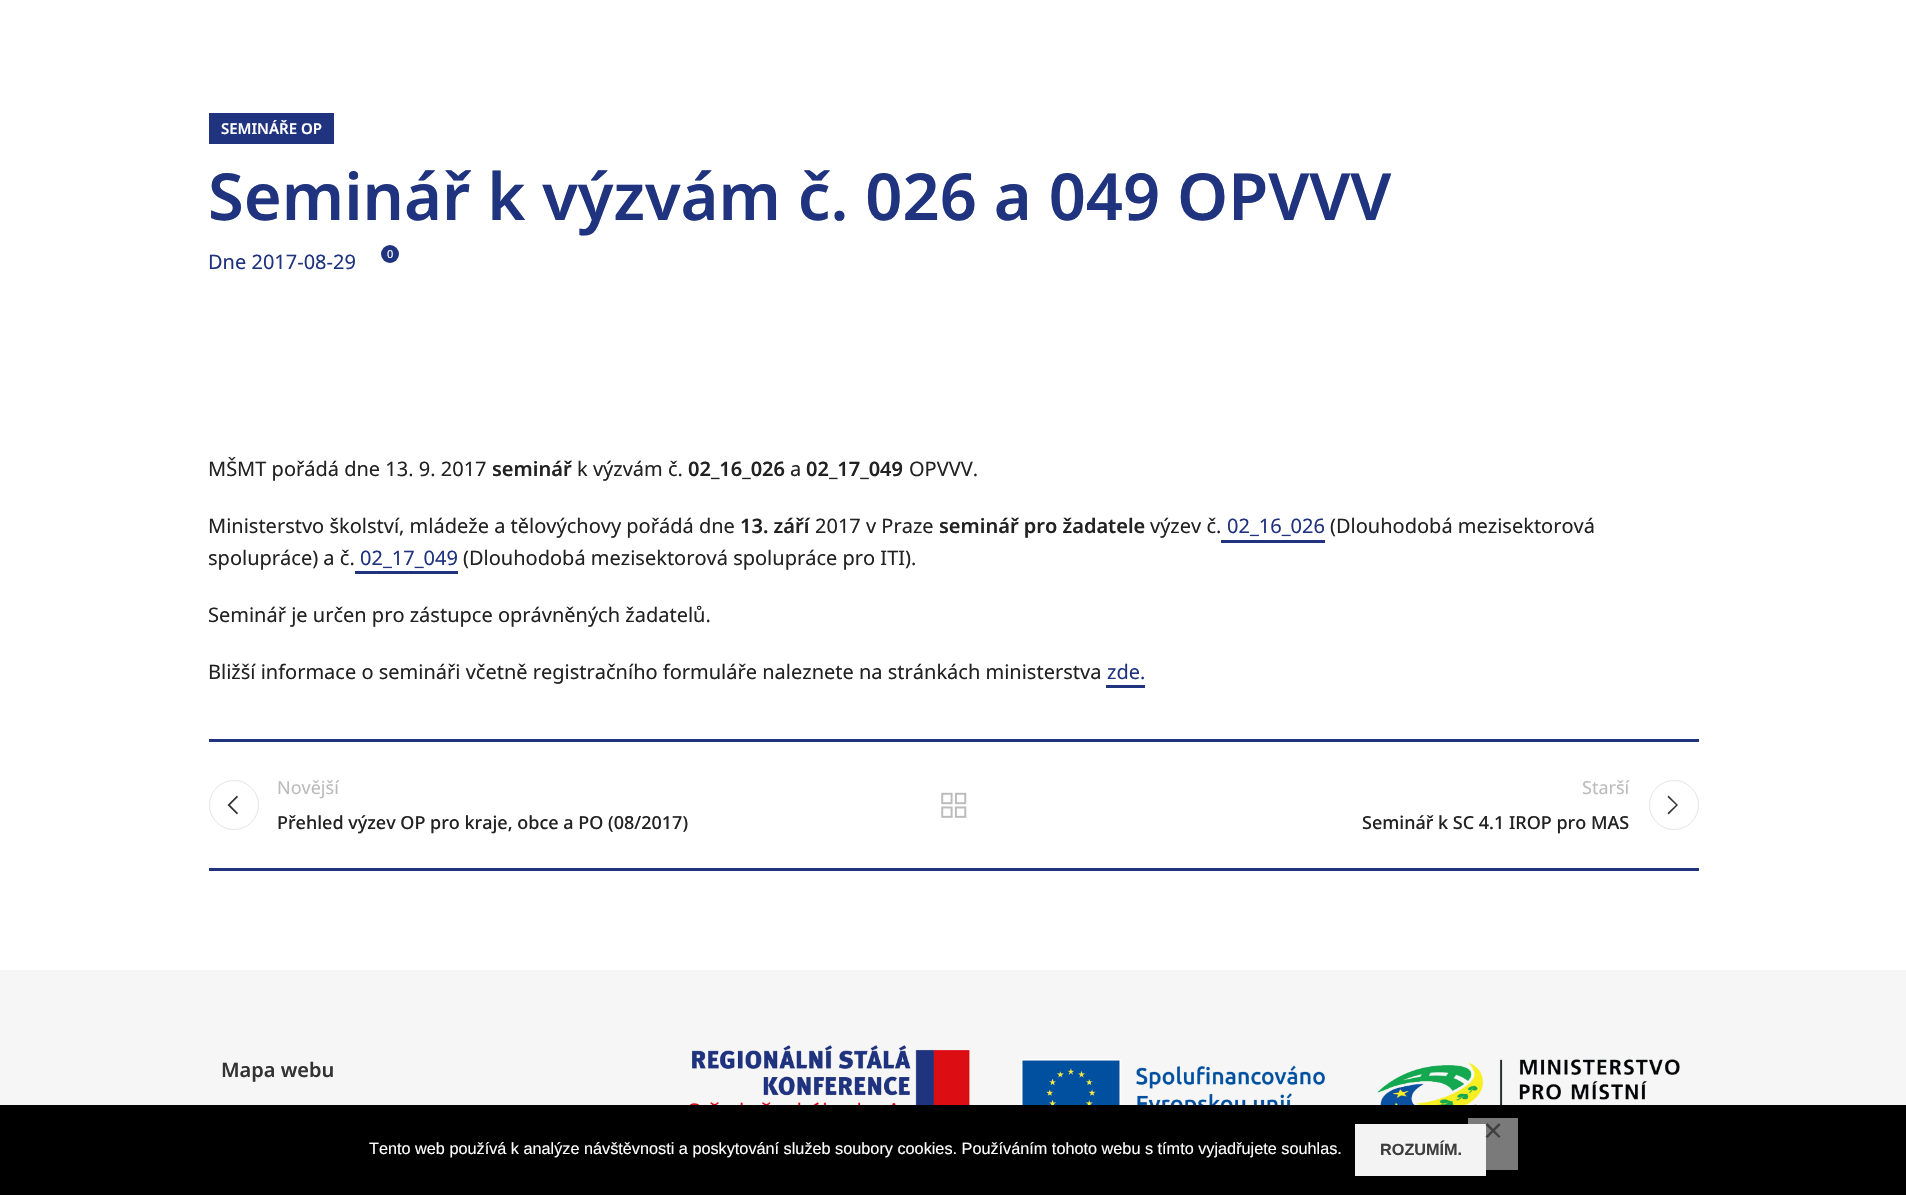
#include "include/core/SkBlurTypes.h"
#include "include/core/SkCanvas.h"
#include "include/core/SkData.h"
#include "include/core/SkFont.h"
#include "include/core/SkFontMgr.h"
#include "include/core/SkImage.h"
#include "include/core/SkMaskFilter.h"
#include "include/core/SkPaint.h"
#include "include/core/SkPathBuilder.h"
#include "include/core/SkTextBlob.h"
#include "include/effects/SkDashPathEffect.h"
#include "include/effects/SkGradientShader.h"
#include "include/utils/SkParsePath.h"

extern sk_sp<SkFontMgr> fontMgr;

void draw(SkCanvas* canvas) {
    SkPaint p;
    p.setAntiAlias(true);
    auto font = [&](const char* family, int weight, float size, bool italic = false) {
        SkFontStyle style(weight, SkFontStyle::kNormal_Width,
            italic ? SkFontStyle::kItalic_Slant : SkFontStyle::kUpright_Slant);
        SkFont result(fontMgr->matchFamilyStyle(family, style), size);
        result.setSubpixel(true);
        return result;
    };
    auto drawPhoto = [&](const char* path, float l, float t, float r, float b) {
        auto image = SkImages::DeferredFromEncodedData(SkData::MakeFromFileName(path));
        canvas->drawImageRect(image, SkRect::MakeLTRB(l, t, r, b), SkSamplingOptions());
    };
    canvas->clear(0xFFFFFFFF);
    p.setColor(0xFF1F337E);
    canvas->drawRect(SkRect::MakeLTRB(209, 113, 334, 144), p);
    auto font1 = font("Noto Sans", 600, 15);
    p.setColor(0xFFFFFFFF);
    canvas->drawString("SEMINÁŘE OP", 221, 134, font1, p);
    auto font2 = font("Noto Sans", 600, 65);
    p.setColor(0xFF1F337E);
    canvas->drawString("Seminář k výzvám č. 026 a 049 OPVVV", 208, 220, font2, p);
    auto font3 = font("Noto Sans", 400, 20);
    canvas->drawString("Dne 2017-08-29", 208, 269, font3, p);
    canvas->drawCircle(390, 254, 9, p);
    auto font4 = font("Noto Sans", 400, 11);
    p.setColor(0xFFFFFFFF);
    canvas->drawString("0", 387, 258, font4, p);
    p.setColor(0xFF222222);
    canvas->drawString("MŠMT pořádá dne 13. 9. 2017", 208, 476, font3, p);
    auto font5 = font("Noto Sans", 600, 20);
    canvas->drawString("seminář", 492, 476, font5, p);
    canvas->drawString("k výzvám č.", 577, 476, font3, p);
    canvas->drawString("02_16_026", 688, 476, font5, p);
    canvas->drawString("a", 790, 476, font3, p);
    canvas->drawString("02_17_049", 806, 476, font5, p);
    canvas->drawString("OPVVV.", 909, 476, font3, p);
    canvas->drawString("Ministerstvo školství, mládeže a tělovýchovy pořádá dne", 208, 533, font3, p);
    canvas->drawString("13. září", 740, 533, font5, p);
    canvas->drawString("2017 v Praze", 815, 533, font3, p);
    canvas->drawString("seminář pro žadatele", 939, 533, font5, p);
    canvas->drawString("výzev č.", 1150, 533, font3, p);
    p.setColor(0xFF1F337E);
    canvas->drawString("02_16_026", 1227, 533, font3, p);
    canvas->drawRect(SkRect::MakeLTRB(1221, 540, 1325, 543), p);
    p.setColor(0xFF222222);
    canvas->drawString("(Dlouhodobá mezisektorová", 1330, 533, font3, p);
    canvas->drawString("spolupráce) a č.", 208, 565, font3, p);
    p.setColor(0xFF1F337E);
    canvas->drawString("02_17_049", 360, 565, font3, p);
    canvas->drawRect(SkRect::MakeLTRB(355, 571, 458, 574), p);
    p.setColor(0xFF222222);
    {
        const struct { const char* s; float x, y; } items[] = {
            {"(Dlouhodobá mezisektorová spolupráce pro ITI).", 463, 565},
            {"Seminář je určen pro zástupce oprávněných žadatelů.", 208, 622},
            {"Bližší informace o semináři včetně registračního formuláře naleznete na stránkách ministerstva", 208, 679},
        };
        for (auto [s, x, y] : items) {
            canvas->drawString(s, x, y, font3, p);
        }
    }
    p.setColor(0xFF1F337E);
    canvas->drawString("zde.", 1107, 679, font3, p);
    {
        const struct { float l, t, r, b; SkColor color; } items[] = {
            {1106, 685, 1145, 688, 0xFF1F337E},
            {209, 739, 1699, 742, 0xFF1F337E},
            {209, 868, 1699, 871, 0xFF1F337E},
        };
        for (auto [l, t, r, b, color] : items) {
            p.setColor(color);
            canvas->drawRect(SkRect::MakeLTRB(l, t, r, b), p);
        }
    }
    p.setStyle(SkPaint::kStroke_Style);
    p.setStrokeWidth(1);
    p.setColor(0xFFE4E4E4);
    canvas->drawCircle(234, 805, 24.5f, p);
    p.setStyle(SkPaint::kFill_Style);
    p.setColor(0xFF333333);
    canvas->drawPath(SkPathBuilder().moveTo(238, 797).lineTo(237, 795.5f).lineTo(227.5f, 805).lineTo(237, 814.5f).lineTo(238, 813).lineTo(230, 805).close().detach(), p);
    auto font6 = font("Noto Sans", 400, 18);
    p.setColor(0xFFBBBBBB);
    canvas->drawString("Novější", 277, 794, font6, p);
    auto font7 = font("Noto Sans", 500, 18);
    p.setColor(0xFF222222);
    canvas->drawString("Přehled výzev OP pro kraje, obce a PO (08/2017)", 277, 829, font7, p);
    drawPhoto("media/1.png", 941, 792, 967, 818);
    p.setColor(0xFFBBBBBB);
    canvas->drawString("Starší", 1582, 794, font6, p);
    p.setStyle(SkPaint::kStroke_Style);
    p.setColor(0xFFE4E4E4);
    canvas->drawCircle(1674, 805, 24.5f, p);
    p.setStyle(SkPaint::kFill_Style);
    p.setColor(0xFF333333);
    canvas->drawPath(SkPathBuilder().moveTo(1667.5f, 797).lineTo(1676, 805).lineTo(1667.5f, 813).lineTo(1668.5f, 814.5f).lineTo(1678, 805).lineTo(1668.5f, 795.5f).close().detach(), p);
    p.setColor(0xFF222222);
    canvas->drawString("Seminář k SC 4.1 IROP pro MAS", 1362, 829, font7, p);
    p.setColor(0xFFF6F6F6);
    canvas->drawRect(SkRect::MakeLTRB(0, 970, 1906, 1105), p);
    p.setColor(0xFF333333);
    canvas->drawString("Mapa webu", 221, 1077, font5, p);
    drawPhoto("media/2.png", 689, 1045, 970, 1105);
    drawPhoto("media/3.png", 1021, 1059, 1325, 1105);
    drawPhoto("media/4.png", 1377, 1059, 1680, 1105);
    p.setColor(0xFF000000);
    canvas->drawRect(SkRect::MakeLTRB(0, 1105, 1906, 1195), p);
    auto font8 = font("Liberation Sans", 400, 16.25f);
    p.setColor(0xFFFFFFFF);
    canvas->drawString("Tento web používá k analýze návštěvnosti a poskytování služeb soubory cookies. Používáním tohoto webu s tímto vyjadřujete souhlas.", 369, 1154, font8, p);
    p.setColor(0xFFF3F3F3);
    canvas->drawRect(SkRect::MakeLTRB(1355, 1124, 1486, 1176), p);
    auto font9 = font("Liberation Sans", 700, 16.25f);
    p.setColor(0xFF3E3E3E);
    canvas->drawString("ROZUMÍM.", 1380, 1155, font9, p);
    p.setColor(0x80F3F3F3);
    canvas->drawRect(SkRect::MakeLTRB(1468, 1118, 1518, 1170), p);
    p.setColor(0xFF404040);
    canvas->drawPath(SkPathBuilder().moveTo(1499, 1123).lineTo(1500.5f, 1125).lineTo(1487.5f, 1138).lineTo(1485.5f, 1136.5f).close().detach(), p);
    canvas->drawPath(SkPathBuilder().moveTo(1485.5f, 1125).lineTo(1487.5f, 1123).lineTo(1500.5f, 1136.5f).lineTo(1499, 1138).close().detach(), p);
}
